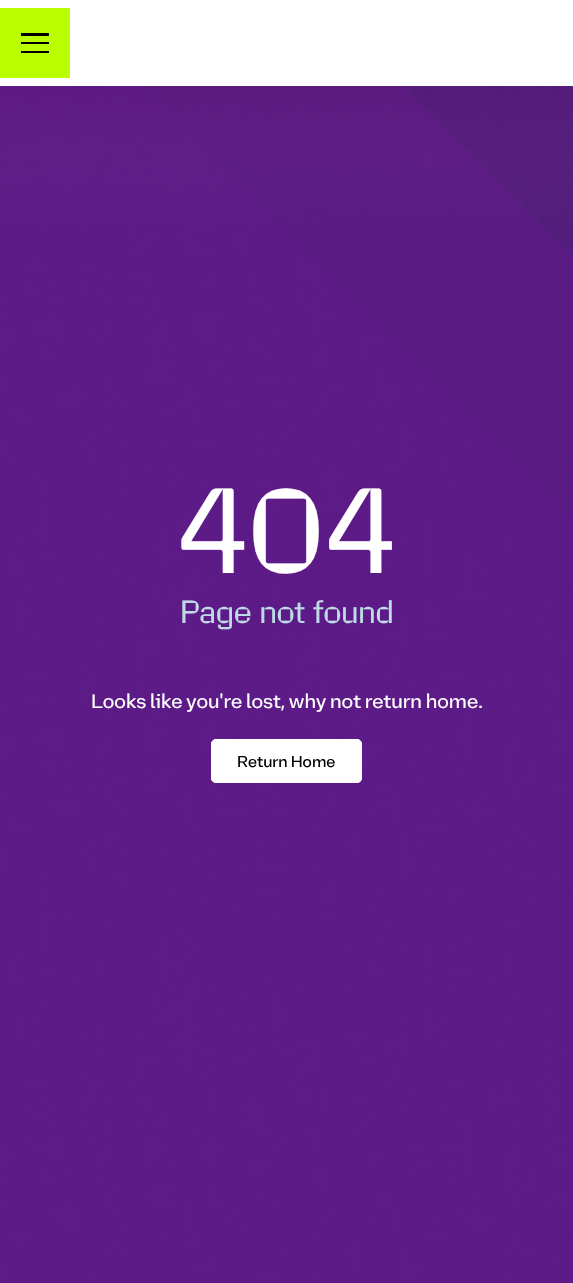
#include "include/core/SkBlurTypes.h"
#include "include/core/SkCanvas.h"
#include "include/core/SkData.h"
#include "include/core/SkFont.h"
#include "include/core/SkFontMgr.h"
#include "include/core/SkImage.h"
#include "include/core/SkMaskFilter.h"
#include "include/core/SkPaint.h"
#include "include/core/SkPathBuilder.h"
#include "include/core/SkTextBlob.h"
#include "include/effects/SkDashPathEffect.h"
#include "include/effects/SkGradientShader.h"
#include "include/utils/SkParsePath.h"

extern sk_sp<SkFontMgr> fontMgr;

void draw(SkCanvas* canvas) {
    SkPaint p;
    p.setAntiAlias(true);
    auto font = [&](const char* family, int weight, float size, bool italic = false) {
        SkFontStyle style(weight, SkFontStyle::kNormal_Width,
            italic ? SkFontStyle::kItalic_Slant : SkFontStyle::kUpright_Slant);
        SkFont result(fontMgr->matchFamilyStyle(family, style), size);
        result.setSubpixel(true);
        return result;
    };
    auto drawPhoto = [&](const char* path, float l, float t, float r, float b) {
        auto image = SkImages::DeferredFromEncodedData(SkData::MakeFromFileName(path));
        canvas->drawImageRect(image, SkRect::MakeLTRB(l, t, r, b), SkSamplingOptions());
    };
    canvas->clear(0xFFFFFFFF);
    {
        const struct { float l, t, r, b; SkColor color; } items[] = {
            {0, 8, 70, 78, 0xFFB9FF00},
            {21, 33, 49, 36, 0xFF000000},
            {21, 51, 49, 53, 0xFF000000},
            {21, 42, 49, 44, 0xFF000000},
        };
        for (auto [l, t, r, b, color] : items) {
            p.setColor(color);
            canvas->drawRect(SkRect::MakeLTRB(l, t, r, b), p);
        }
    }
    drawPhoto("media/1.png", 0, 86, 573, 1283);
    auto font1 = font("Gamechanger", 400, 120);
    p.setColor(0xFFFFFFFF);
    canvas->drawString("404", 177, 573, font1, p);
    auto font2 = font("Gamechanger", 400, 32);
    p.setColor(0xFFBEDAE5);
    canvas->drawString("Page not found", 180, 623, font2, p);
    auto font3 = font("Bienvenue", 400, 20);
    p.setColor(0xFFFFFFFF);
    canvas->drawString("Looks like you're lost, why not return home.", 91, 708, font3, p);
    canvas->save();
    canvas->clipPath(SkPathBuilder().moveTo(219, 738).lineTo(354, 738).cubicTo(359, 738, 363, 742, 363, 747).lineTo(363, 775).cubicTo(363, 780, 359, 784, 354, 784).lineTo(219, 784).cubicTo(214, 784, 210, 780, 210, 775).lineTo(210, 747).cubicTo(210, 742, 214, 738, 219, 738).close().detach(), true);
    canvas->drawRect(SkRect::MakeLTRB(211, 739, 362, 783), p);
    canvas->restore();
    canvas->drawPath(SkPathBuilder(SkPathFillType::kEvenOdd).moveTo(211, 743).cubicTo(212, 741, 213, 740, 215, 739).lineTo(358, 739).cubicTo(360, 740, 361, 741, 362, 743).lineTo(362, 779).cubicTo(361, 781, 360, 782, 358, 783).lineTo(215, 783).cubicTo(213, 782, 212, 781, 211, 779).close().moveTo(213, 741).lineTo(213, 781).lineTo(360, 781).lineTo(360, 741).close().detach(), p);
    auto font4 = font("Bienvenue", 400, 16);
    p.setColor(0xFF000000);
    canvas->drawString("Return Home", 237, 767, font4, p);
}
